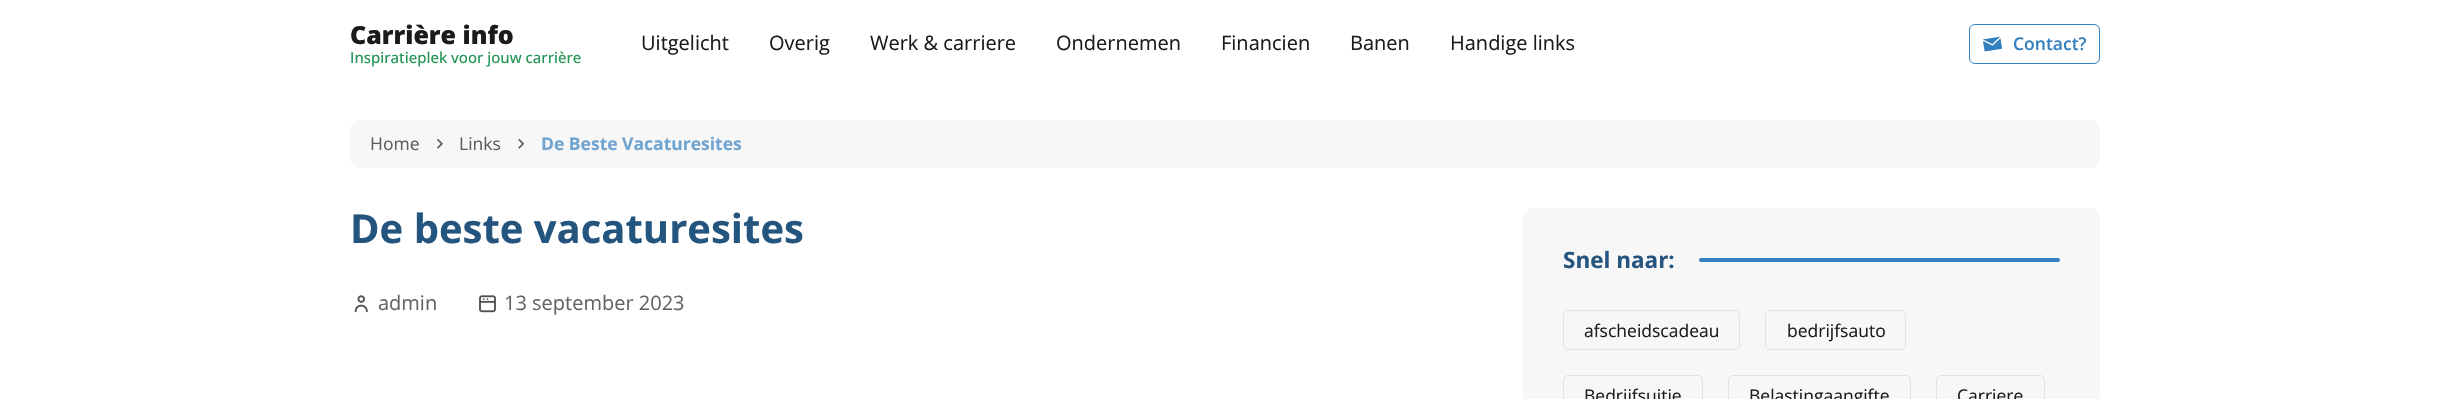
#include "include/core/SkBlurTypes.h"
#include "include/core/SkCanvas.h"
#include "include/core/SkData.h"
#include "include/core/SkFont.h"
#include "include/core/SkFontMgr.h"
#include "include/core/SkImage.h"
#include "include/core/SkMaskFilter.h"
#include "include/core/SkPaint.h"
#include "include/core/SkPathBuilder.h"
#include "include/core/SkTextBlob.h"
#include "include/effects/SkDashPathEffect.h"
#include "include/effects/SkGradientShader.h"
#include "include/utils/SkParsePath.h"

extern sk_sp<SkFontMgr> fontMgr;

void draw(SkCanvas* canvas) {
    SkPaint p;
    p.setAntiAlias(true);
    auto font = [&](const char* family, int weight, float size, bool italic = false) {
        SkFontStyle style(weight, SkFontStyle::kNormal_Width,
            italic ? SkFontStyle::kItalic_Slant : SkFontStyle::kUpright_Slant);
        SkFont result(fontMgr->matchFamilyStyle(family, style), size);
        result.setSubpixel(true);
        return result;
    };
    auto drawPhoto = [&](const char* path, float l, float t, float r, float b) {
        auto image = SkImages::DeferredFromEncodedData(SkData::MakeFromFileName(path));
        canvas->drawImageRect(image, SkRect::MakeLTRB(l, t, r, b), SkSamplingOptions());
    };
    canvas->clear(0xFFFFFFFF);
    auto font1 = font("Open Sans", 800, 25);
    p.setColor(0xFF1B1A1C);
    canvas->drawString("Carrière info", 350, 44, font1, p);
    auto font2 = font("Open Sans", 500, 15);
    p.setColor(0xFF259658);
    canvas->drawString("Inspiratieplek voor jouw carrière", 350, 63, font2, p);
    auto font3 = font("Open Sans", 400, 20);
    p.setColor(0xFF1B1A1C);
    {
        const struct { const char* s; float x, y; } items[] = {
            {"Uitgelicht", 641, 50},
            {"Overig", 769, 50},
            {"Werk & carriere", 870, 50},
            {"Ondernemen", 1056, 50},
            {"Financien", 1221, 50},
            {"Banen", 1350, 50},
            {"Handige links", 1450, 50},
        };
        for (auto [s, x, y] : items) {
            canvas->drawString(s, x, y, font3, p);
        }
    }
    p.setStyle(SkPaint::kStroke_Style);
    p.setStrokeWidth(1);
    p.setColor(0xFF3480BF);
    canvas->drawRoundRect(SkRect::MakeLTRB(1969.5f, 24.5f, 2099.5f, 63.5f), 5.5f, 5.5f, p);
    drawPhoto("media/1.png", 1983, 36, 2003, 52);
    auto font4 = font("Open Sans", 600, 17.5f);
    p.setStyle(SkPaint::kFill_Style);
    canvas->drawString("Contact?", 2013, 50, font4, p);
    p.setColor(0xFFF7F7F7);
    canvas->drawRoundRect(SkRect::MakeLTRB(350, 120, 2100, 168), 10, 10, p);
    auto font5 = font("Open Sans", 400, 17.5f);
    p.setColor(0xFF5D5C5E);
    canvas->drawString("Home", 370, 150, font5, p);
    drawPhoto("media/2.png", 437, 139, 443, 149);
    canvas->drawString("Links", 459, 150, font5, p);
    drawPhoto("media/3.png", 518, 139, 525, 149);
    auto font6 = font("Open Sans", 700, 17.5f);
    p.setColor(0xFF6FA4D0);
    canvas->drawString("De Beste Vacaturesites", 541, 150, font6, p);
    auto font7 = font("Open Sans", 700, 40);
    p.setColor(0xFF23557F);
    canvas->drawString("De beste vacaturesites", 350, 243, font7, p);
    drawPhoto("media/4.png", 354, 295, 368, 313);
    p.setColor(0xFF646365);
    canvas->drawString("admin", 378, 310, font3, p);
    drawPhoto("media/5.png", 479, 295, 496, 313);
    canvas->drawString("13 september 2023", 504, 310, font3, p);
    p.setColor(0xFFF7F7F7);
    canvas->drawRoundRect(SkRect::MakeLTRB(1523, 208, 2100, 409), 10, 10, p);
    auto font8 = font("Open Sans", 700, 22.5f);
    p.setColor(0xFF23557F);
    canvas->drawString("Snel naar:", 1563, 268, font8, p);
    p.setColor(0xFF3480BF);
    canvas->drawRoundRect(SkRect::MakeLTRB(1699, 258, 2060, 262), 2, 2, p);
    p.setStyle(SkPaint::kStroke_Style);
    p.setColor(0xFFE2E2E2);
    canvas->drawRoundRect(SkRect::MakeLTRB(1563.5f, 310.5f, 1739.5f, 349.5f), 4.5f, 4.5f, p);
    p.setStyle(SkPaint::kFill_Style);
    p.setColor(0xFF1B1A1C);
    canvas->drawString("afscheidscadeau", 1584, 337, font5, p);
    p.setStyle(SkPaint::kStroke_Style);
    p.setColor(0xFFE2E2E2);
    canvas->drawRoundRect(SkRect::MakeLTRB(1765.5f, 310.5f, 1905.5f, 349.5f), 4.5f, 4.5f, p);
    p.setStyle(SkPaint::kFill_Style);
    p.setColor(0xFF1B1A1C);
    canvas->drawString("bedrijfsauto", 1787, 337, font5, p);
    p.setStyle(SkPaint::kStroke_Style);
    p.setColor(0xFFE2E2E2);
    canvas->drawRoundRect(SkRect::MakeLTRB(1563.5f, 375.5f, 1702.5f, 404.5f), 4.5f, 4.5f, p);
    p.setStyle(SkPaint::kFill_Style);
    p.setColor(0xFF1B1A1C);
    canvas->drawString("Bedrijfsuitje", 1584, 402, font5, p);
    p.setStyle(SkPaint::kStroke_Style);
    p.setColor(0xFFE2E2E2);
    canvas->drawRoundRect(SkRect::MakeLTRB(1728.5f, 375.5f, 1910.5f, 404.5f), 4.5f, 4.5f, p);
    p.setStyle(SkPaint::kFill_Style);
    p.setColor(0xFF1B1A1C);
    canvas->drawString("Belastingaangifte", 1749, 402, font5, p);
    p.setStyle(SkPaint::kStroke_Style);
    p.setColor(0xFFE2E2E2);
    canvas->drawRoundRect(SkRect::MakeLTRB(1936.5f, 375.5f, 2044.5f, 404.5f), 4.5f, 4.5f, p);
    p.setStyle(SkPaint::kFill_Style);
    p.setColor(0xFF1B1A1C);
    canvas->drawString("Carriere", 1957, 402, font5, p);
}
